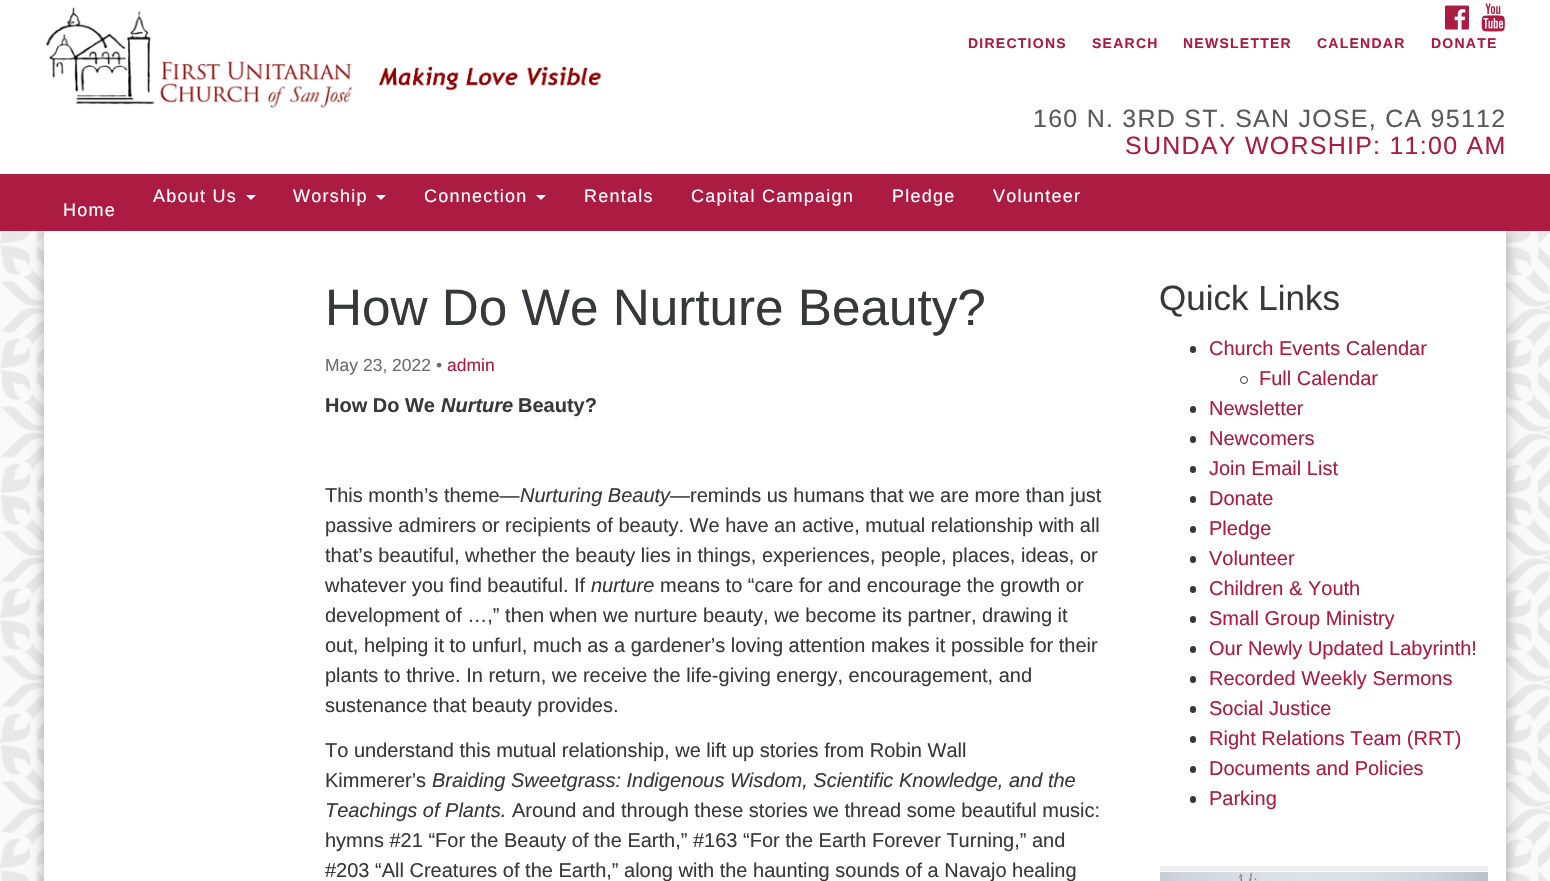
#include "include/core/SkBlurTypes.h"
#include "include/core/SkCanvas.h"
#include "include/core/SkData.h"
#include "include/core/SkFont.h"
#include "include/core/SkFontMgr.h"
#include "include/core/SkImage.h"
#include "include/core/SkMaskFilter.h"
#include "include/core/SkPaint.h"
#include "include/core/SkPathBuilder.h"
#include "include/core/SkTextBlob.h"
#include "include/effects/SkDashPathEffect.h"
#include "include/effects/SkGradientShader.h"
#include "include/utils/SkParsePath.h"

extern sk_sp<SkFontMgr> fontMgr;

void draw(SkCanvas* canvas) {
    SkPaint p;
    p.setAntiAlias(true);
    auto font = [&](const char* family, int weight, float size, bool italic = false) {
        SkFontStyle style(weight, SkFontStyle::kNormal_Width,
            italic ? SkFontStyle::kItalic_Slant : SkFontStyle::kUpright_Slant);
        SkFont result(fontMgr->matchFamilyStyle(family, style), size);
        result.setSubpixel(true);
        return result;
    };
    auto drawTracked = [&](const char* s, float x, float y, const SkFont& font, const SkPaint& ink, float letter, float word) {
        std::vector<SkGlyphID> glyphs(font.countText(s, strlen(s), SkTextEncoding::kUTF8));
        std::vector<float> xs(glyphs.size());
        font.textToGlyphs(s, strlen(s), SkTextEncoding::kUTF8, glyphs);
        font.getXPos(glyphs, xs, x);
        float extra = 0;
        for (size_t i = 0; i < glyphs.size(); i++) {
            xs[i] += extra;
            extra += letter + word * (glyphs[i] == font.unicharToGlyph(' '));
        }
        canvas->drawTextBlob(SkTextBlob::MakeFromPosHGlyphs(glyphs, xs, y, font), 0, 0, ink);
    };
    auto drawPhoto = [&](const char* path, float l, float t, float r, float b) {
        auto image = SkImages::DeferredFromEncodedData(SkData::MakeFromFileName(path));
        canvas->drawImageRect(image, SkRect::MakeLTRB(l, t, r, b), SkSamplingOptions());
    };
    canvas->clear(0xFFFFFFFF);
    drawPhoto("media/1.png", 0, 231, 1550, 881);
    drawPhoto("media/2.png", 45, 7, 602, 108);
    drawPhoto("media/3.png", 1445, 5, 1469, 30);
    drawPhoto("media/4.png", 1481, 3, 1505, 32);
    auto font1 = font("Liberation Sans", 700, 14);
    p.setColor(0xFFAB1B42);
    {
        const struct { const char* s; float x, y; } items[] = {
            {"DIRECTIONS", 968, 48},
            {"SEARCH", 1092, 48},
            {"NEWSLETTER", 1183, 48},
            {"CALENDAR", 1317, 48},
            {"DONATE", 1431, 48},
        };
        for (auto [s, x, y] : items) {
            drawTracked(s, x, y, font1, p, 1.25f, 0);
        }
    }
    auto font2 = font("Liberation Sans", 400, 25);
    p.setColor(0xFF58595B);
    drawTracked("160 N. 3RD ST. SAN JOSE, CA 95112", 1033, 127, font2, p, 1.25f, 0);
    p.setColor(0xFFAB1B42);
    drawTracked("SUNDAY WORSHIP: 11:00 AM", 1125, 154, font2, p, 1.25f, 0);
    p.setColor(0x4D000000);
    p.setMaskFilter(SkMaskFilter::MakeBlur(kNormal_SkBlurStyle, 6));
    canvas->drawRect(SkRect::MakeLTRB(44, 231, 1506, 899), p);
    p.setMaskFilter(nullptr);
    p.setColor(0xFFAB1B42);
    canvas->drawRect(SkRect::MakeLTRB(0, 174, 1550, 231), p);
    auto font3 = font("Liberation Sans", 400, 18);
    p.setColor(0xFFFFFFFF);
    drawTracked("About Us", 153, 202, font3, p, 1.25f, 0);
    canvas->drawPath(SkPathBuilder().moveTo(246, 195).lineTo(256, 195).lineTo(251, 200).close().detach(), p);
    drawTracked("Worship", 293, 202, font3, p, 1.25f, 0);
    canvas->drawPath(SkPathBuilder().moveTo(376, 195).lineTo(386, 195).lineTo(381, 200).close().detach(), p);
    drawTracked("Connection", 424, 202, font3, p, 1.25f, 0);
    canvas->drawPath(SkPathBuilder().moveTo(536, 195).lineTo(546, 195).lineTo(541, 200).close().detach(), p);
    {
        const struct { const char* s; float x, y; } items[] = {
            {"Rentals", 584, 202},
            {"Capital Campaign", 691, 202},
            {"Pledge", 892, 202},
            {"Volunteer", 993, 202},
            {"Home", 63, 216},
        };
        for (auto [s, x, y] : items) {
            drawTracked(s, x, y, font3, p, 1.25f, 0);
        }
    }
    canvas->drawRect(SkRect::MakeLTRB(44, 231, 1506, 881), p);
    auto font4 = font("Liberation Sans", 400, 51.25f);
    p.setColor(0xFF373839);
    canvas->drawString("How Do We Nurture Beauty?", 325, 325, font4, p);
    auto font5 = font("Liberation Sans", 400, 17.5f);
    p.setColor(0xFF6C6D6F);
    canvas->drawString("May 23, 2022 •", 325, 371, font5, p);
    p.setColor(0xFFAB1B42);
    canvas->drawString("admin", 447, 371, font5, p);
    auto font6 = font("Liberation Sans", 700, 20);
    p.setColor(0xFF373839);
    canvas->drawString("How Do We", 325, 412, font6, p);
    auto font7 = font("Liberation Sans", 700, 20, true);
    canvas->drawString("Nurture", 441, 412, font7, p);
    canvas->drawString("Beauty?", 518, 412, font6, p);
    auto font8 = font("Liberation Sans", 400, 20);
    canvas->drawString("This month’s theme—", 325, 502, font8, p);
    auto font9 = font("Liberation Sans", 400, 20, true);
    canvas->drawString("Nurturing Beauty", 520, 502, font9, p);
    {
        const struct { const char* s; float x, y; } items[] = {
            {"—reminds us humans that we are more than just", 670, 502},
            {"passive admirers or recipients of beauty. We have an active, mutual relationship with all", 325, 532},
            {"that’s beautiful, whether the beauty lies in things, experiences, people, places, ideas, or", 325, 562},
            {"whatever you find beautiful. If", 325, 592},
        };
        for (auto [s, x, y] : items) {
            canvas->drawString(s, x, y, font8, p);
        }
    }
    canvas->drawString("nurture", 591, 592, font9, p);
    {
        const struct { const char* s; float x, y; } items[] = {
            {"means to “care for and encourage the growth or", 660, 592},
            {"development of …,” then when we nurture beauty, we become its partner, drawing it", 325, 622},
            {"out, helping it to unfurl, much as a gardener’s loving attention makes it possible for their", 325, 652},
            {"plants to thrive. In return, we receive the life-giving energy, encouragement, and", 325, 682},
            {"sustenance that beauty provides.", 325, 712},
            {"To understand this mutual relationship, we lift up stories from Robin Wall", 325, 757},
            {"Kimmerer’s", 325, 787},
        };
        for (auto [s, x, y] : items) {
            canvas->drawString(s, x, y, font8, p);
        }
    }
    canvas->drawString("Braiding Sweetgrass: Indigenous Wisdom, Scientific Knowledge, and the", 432, 787, font9, p);
    canvas->drawString("Teachings of Plants.", 325, 817, font9, p);
    {
        const struct { const char* s; float x, y; } items[] = {
            {"Around and through these stories we thread some beautiful music:", 512, 817},
            {"hymns #21 “For the Beauty of the Earth,” #163 “For the Earth Forever Turning,” and", 325, 847},
            {"#203 “All Creatures of the Earth,” along with the haunting sounds of a Navajo healing", 325, 877},
        };
        for (auto [s, x, y] : items) {
            canvas->drawString(s, x, y, font8, p);
        }
    }
    auto font10 = font("Liberation Sans", 400, 35);
    canvas->drawString("Quick Links", 1159, 310, font10, p);
    canvas->drawRoundRect(SkRect::MakeLTRB(1190, 346, 1196, 353), 3, 3, p);
    p.setColor(0xFFAB1B42);
    canvas->drawString("Church Events Calendar", 1209, 355, font8, p);
    p.setStyle(SkPaint::kStroke_Style);
    p.setStrokeWidth(1);
    p.setColor(0xFF373839);
    canvas->drawCircle(1244, 380, 3.5f, p);
    p.setStyle(SkPaint::kFill_Style);
    p.setColor(0xFFAB1B42);
    canvas->drawString("Full Calendar", 1259, 385, font8, p);
    p.setColor(0xFF373839);
    canvas->drawRoundRect(SkRect::MakeLTRB(1190, 406, 1196, 413), 3, 3, p);
    p.setColor(0xFFAB1B42);
    canvas->drawString("Newsletter", 1209, 415, font8, p);
    p.setColor(0xFF373839);
    canvas->drawRoundRect(SkRect::MakeLTRB(1190, 436, 1196, 443), 3, 3, p);
    p.setColor(0xFFAB1B42);
    canvas->drawString("Newcomers", 1209, 445, font8, p);
    p.setColor(0xFF373839);
    canvas->drawRoundRect(SkRect::MakeLTRB(1190, 466, 1196, 473), 3, 3, p);
    p.setColor(0xFFAB1B42);
    canvas->drawString("Join Email List", 1209, 475, font8, p);
    p.setColor(0xFF373839);
    canvas->drawRoundRect(SkRect::MakeLTRB(1190, 496, 1196, 503), 3, 3, p);
    p.setColor(0xFFAB1B42);
    canvas->drawString("Donate", 1209, 505, font8, p);
    p.setColor(0xFF373839);
    canvas->drawRoundRect(SkRect::MakeLTRB(1190, 526, 1196, 533), 3, 3, p);
    p.setColor(0xFFAB1B42);
    canvas->drawString("Pledge", 1209, 535, font8, p);
    p.setColor(0xFF373839);
    canvas->drawRoundRect(SkRect::MakeLTRB(1190, 556, 1196, 563), 3, 3, p);
    p.setColor(0xFFAB1B42);
    canvas->drawString("Volunteer", 1209, 565, font8, p);
    p.setColor(0xFF373839);
    canvas->drawRoundRect(SkRect::MakeLTRB(1190, 586, 1196, 593), 3, 3, p);
    p.setColor(0xFFAB1B42);
    canvas->drawString("Children & Youth", 1209, 595, font8, p);
    p.setColor(0xFF373839);
    canvas->drawRoundRect(SkRect::MakeLTRB(1190, 616, 1196, 623), 3, 3, p);
    p.setColor(0xFFAB1B42);
    canvas->drawString("Small Group Ministry", 1209, 625, font8, p);
    p.setColor(0xFF373839);
    canvas->drawRoundRect(SkRect::MakeLTRB(1190, 646, 1196, 653), 3, 3, p);
    p.setColor(0xFFAB1B42);
    canvas->drawString("Our Newly Updated Labyrinth!", 1209, 655, font8, p);
    p.setColor(0xFF373839);
    canvas->drawRoundRect(SkRect::MakeLTRB(1190, 676, 1196, 683), 3, 3, p);
    p.setColor(0xFFAB1B42);
    canvas->drawString("Recorded Weekly Sermons", 1209, 685, font8, p);
    p.setColor(0xFF373839);
    canvas->drawRoundRect(SkRect::MakeLTRB(1190, 706, 1196, 713), 3, 3, p);
    p.setColor(0xFFAB1B42);
    canvas->drawString("Social Justice", 1209, 715, font8, p);
    p.setColor(0xFF373839);
    canvas->drawRoundRect(SkRect::MakeLTRB(1190, 736, 1196, 743), 3, 3, p);
    p.setColor(0xFFAB1B42);
    canvas->drawString("Right Relations Team (RRT)", 1209, 745, font8, p);
    p.setColor(0xFF373839);
    canvas->drawRoundRect(SkRect::MakeLTRB(1190, 766, 1196, 773), 3, 3, p);
    p.setColor(0xFFAB1B42);
    canvas->drawString("Documents and Policies", 1209, 775, font8, p);
    p.setColor(0xFF373839);
    canvas->drawRoundRect(SkRect::MakeLTRB(1190, 796, 1196, 803), 3, 3, p);
    p.setColor(0xFFAB1B42);
    canvas->drawString("Parking", 1209, 805, font8, p);
    p.setColor(0xFFEEEEEE);
    canvas->drawRect(SkRect::MakeLTRB(1160, 866, 1488, 871), p);
    drawPhoto("media/5.png", 1160, 872, 1488, 881);
}
